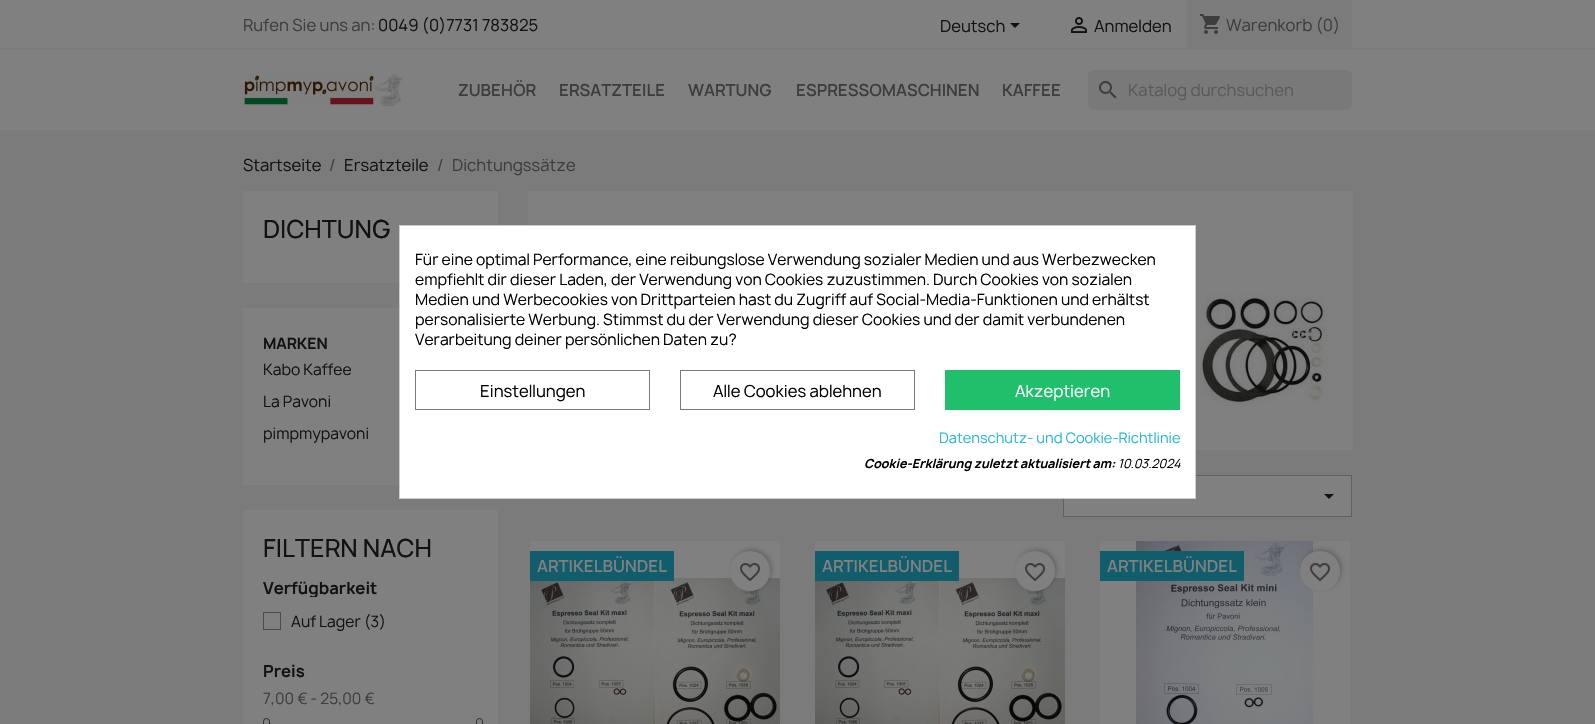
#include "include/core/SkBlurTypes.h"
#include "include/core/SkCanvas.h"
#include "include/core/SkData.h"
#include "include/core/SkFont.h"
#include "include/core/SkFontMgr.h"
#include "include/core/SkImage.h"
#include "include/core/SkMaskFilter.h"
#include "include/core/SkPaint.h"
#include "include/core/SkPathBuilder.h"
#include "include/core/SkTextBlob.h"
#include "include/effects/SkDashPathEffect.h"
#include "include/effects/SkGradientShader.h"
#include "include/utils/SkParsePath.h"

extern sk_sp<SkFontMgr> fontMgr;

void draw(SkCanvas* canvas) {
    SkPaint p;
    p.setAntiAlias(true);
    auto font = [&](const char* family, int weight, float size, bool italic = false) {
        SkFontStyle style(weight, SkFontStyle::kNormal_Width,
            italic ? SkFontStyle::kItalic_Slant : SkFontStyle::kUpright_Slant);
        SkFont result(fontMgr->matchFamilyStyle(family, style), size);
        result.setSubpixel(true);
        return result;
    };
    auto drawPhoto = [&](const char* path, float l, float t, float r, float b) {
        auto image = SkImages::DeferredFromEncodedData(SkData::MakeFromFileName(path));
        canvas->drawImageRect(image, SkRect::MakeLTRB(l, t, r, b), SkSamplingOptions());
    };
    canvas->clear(0xFF808080);
    p.setColor(0xFF7B7B7B);
    canvas->drawRect(SkRect::MakeLTRB(0, 48, 1595, 50), p);
    auto font1 = font("Manrope", 400, 16);
    p.setColor(0xFF3D3D3D);
    canvas->drawString("Rufen Sie uns an:", 243, 31, font1, p);
    p.setColor(0xFF121212);
    canvas->drawString("0049 (0)7731 783825", 378, 31, font1, p);
    canvas->drawString("Deutsch", 940, 32, font1, p);
    canvas->drawPath(SkPathBuilder().moveTo(1010, 23).lineTo(1020, 23).lineTo(1015, 28).close().detach(), p);
    drawPhoto("media/1.png", 1071, 17, 1087, 33);
    canvas->drawString("Anmelden", 1094, 32, font1, p);
    p.setColor(0xFF7B7B7B);
    canvas->drawRect(SkRect::MakeLTRB(1187, 0, 1352, 48), p);
    drawPhoto("media/2.png", 1200, 14, 1220, 34);
    p.setColor(0xFF3D3D3D);
    canvas->drawString("Warenkorb (0)", 1226, 31, font1, p);
    drawPhoto("media/3.png", 244, 74, 403, 106);
    auto font2 = font("Manrope", 600, 16);
    {
        const struct { const char* s; float x, y; } items[] = {
            {"ZUBEHÖR", 458, 96},
            {"ERSATZTEILE", 559, 96},
            {"WARTUNG", 688, 96},
            {"ESPRESSOMASCHINEN", 796, 96},
            {"KAFFEE", 1002, 96},
        };
        for (auto [s, x, y] : items) {
            canvas->drawString(s, x, y, font2, p);
        }
    }
    p.setColor(0xFF797979);
    canvas->drawRoundRect(SkRect::MakeLTRB(1088, 70, 1352, 110), 5, 5, p);
    drawPhoto("media/4.png", 1099, 81, 1117, 99);
    p.setColor(0xFF595959);
    canvas->drawString("Katalog durchsuchen", 1128, 96, font1, p);
    p.setColor(0xFF7B7B7B);
    canvas->drawRect(SkRect::MakeLTRB(0, 130, 1595, 724), p);
    p.setColor(0xFF121212);
    canvas->drawString("Startseite", 243, 171, font1, p);
    p.setColor(0xFF3D3D3D);
    canvas->drawString("/", 329, 171, font1, p);
    p.setColor(0xFF121212);
    canvas->drawString("Ersatzteile", 344, 171, font1, p);
    p.setColor(0xFF3D3D3D);
    canvas->drawString("/", 437, 171, font1, p);
    canvas->drawString("Dichtungssätze", 452, 171, font1, p);
    p.setColor(0xFF808080);
    canvas->drawRect(SkRect::MakeLTRB(243, 191, 498, 283), p);
    auto font3 = font("Manrope", 500, 24);
    p.setColor(0xFF121212);
    canvas->drawString("DICHTUNG", 263, 238, font3, p);
    p.setColor(0xFF808080);
    canvas->drawRect(SkRect::MakeLTRB(243, 308, 399, 485), p);
    auto font4 = font("Manrope", 700, 15);
    p.setColor(0xFF121212);
    canvas->drawString("MARKEN", 263, 349, font4, p);
    auto font5 = font("Manrope", 400, 15);
    {
        const struct { const char* s; float x, y; } items[] = {
            {"Kabo Kaffee", 263, 375},
            {"La Pavoni", 263, 407},
            {"pimpmypavoni", 263, 439},
        };
        for (auto [s, x, y] : items) {
            canvas->drawString(s, x, y, font5, p);
        }
    }
    p.setColor(0xFF808080);
    canvas->drawRect(SkRect::MakeLTRB(243, 510, 498, 724), p);
    p.setColor(0xFF121212);
    canvas->drawString("FILTERN NACH", 263, 557, font3, p);
    canvas->save();
    canvas->clipRect(SkRect::MakeLTRB(263, 580, 448, 597));
    auto font6 = font("Manrope", 700, 16);
    canvas->drawString("Verfügbarkeit", 263, 594, font6, p);
    canvas->restore();
    p.setStyle(SkPaint::kStroke_Style);
    p.setStrokeWidth(1);
    p.setColor(0xFF4C4C4C);
    canvas->drawRect(SkRect::MakeLTRB(263.5f, 612.5f, 280.5f, 629.5f), p);
    p.setStyle(SkPaint::kFill_Style);
    p.setColor(0xFF121212);
    canvas->drawString("Auf Lager (3)", 291, 627, font5, p);
    canvas->drawString("Preis", 263, 677, font6, p);
    p.setColor(0xFF3D3D3D);
    canvas->drawString("7,00 € - 25,00 €", 263, 704, font5, p);
    p.setStyle(SkPaint::kStroke_Style);
    p.setColor(0xFF2B2B2B);
    canvas->drawRoundRect(SkRect::MakeLTRB(263.5f, 718.5f, 269.5f, 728.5f), 3, 3, p);
    canvas->drawRoundRect(SkRect::MakeLTRB(476.5f, 718.5f, 482.5f, 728.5f), 3, 3, p);
    p.setStyle(SkPaint::kFill_Style);
    p.setColor(0xFF808080);
    canvas->drawRect(SkRect::MakeLTRB(528, 191, 1353, 450), p);
    drawPhoto("media/5.png", 1200, 294, 1328, 406);
    canvas->drawRect(SkRect::MakeLTRB(1063.5f, 475.5f, 1351.5f, 516.5f), p);
    p.setStyle(SkPaint::kStroke_Style);
    p.setColor(0xFF606060);
    canvas->drawRect(SkRect::MakeLTRB(1063.5f, 475.5f, 1351.5f, 516.5f), p);
    p.setStyle(SkPaint::kFill_Style);
    p.setColor(0xFF121212);
    canvas->drawPath(SkPathBuilder().moveTo(1324, 494).lineTo(1334, 494).lineTo(1329, 499).close().detach(), p);
    p.setColor(0xFF808080);
    canvas->drawRect(SkRect::MakeLTRB(530, 541, 780, 573), p);
    drawPhoto("media/7.png", 530, 573, 780, 724);
    p.setColor(0xFF125D6C);
    canvas->drawRect(SkRect::MakeLTRB(530, 551, 674, 581), p);
    p.setColor(0xFF808080);
    canvas->drawString("ARTIKELBÜNDEL", 537, 572, font2, p);
    p.setColor(0x33000000);
    p.setMaskFilter(SkMaskFilter::MakeBlur(kNormal_SkBlurStyle, 2));
    canvas->drawRoundRect(SkRect::MakeLTRB(732, 549, 772, 589), 20, 20, p);
    p.setMaskFilter(nullptr);
    p.setColor(0xFF808080);
    canvas->drawCircle(750, 571, 20, p);
    drawPhoto("media/6.png", 740, 563, 760, 582);
    canvas->drawRect(SkRect::MakeLTRB(815, 541, 1065, 573), p);
    drawPhoto("media/7.png", 815, 573, 1065, 724);
    p.setColor(0xFF125D6C);
    canvas->drawRect(SkRect::MakeLTRB(815, 551, 959, 581), p);
    p.setColor(0xFF808080);
    canvas->drawString("ARTIKELBÜNDEL", 822, 572, font2, p);
    p.setColor(0x33000000);
    p.setMaskFilter(SkMaskFilter::MakeBlur(kNormal_SkBlurStyle, 2));
    canvas->drawRoundRect(SkRect::MakeLTRB(1017, 549, 1057, 589), 20, 20, p);
    p.setMaskFilter(nullptr);
    p.setColor(0xFF808080);
    canvas->drawCircle(1035, 571, 20, p);
    drawPhoto("media/6.png", 1025, 563, 1045, 582);
    canvas->drawRect(SkRect::MakeLTRB(1100, 541, 1350, 724), p);
    drawPhoto("media/8.png", 1136, 541, 1316, 724);
    p.setColor(0x33000000);
    p.setMaskFilter(SkMaskFilter::MakeBlur(kNormal_SkBlurStyle, 2));
    canvas->drawRoundRect(SkRect::MakeLTRB(1302, 549, 1342, 589), 20, 20, p);
    p.setMaskFilter(nullptr);
    p.setColor(0xFF808080);
    canvas->drawCircle(1320, 571, 20, p);
    drawPhoto("media/6.png", 1310, 563, 1330, 582);
    p.setColor(0xFF125D6C);
    canvas->drawRect(SkRect::MakeLTRB(1100, 551, 1244, 581), p);
    p.setColor(0xFF808080);
    canvas->drawString("ARTIKELBÜNDEL", 1107, 572, font2, p);
    p.setColor(0xFFFFFFFF);
    canvas->drawRect(SkRect::MakeLTRB(399.5f, 225.5f, 1195.5f, 498.5f), p);
    p.setStyle(SkPaint::kStroke_Style);
    p.setColor(0xFFCCCCCC);
    canvas->drawRect(SkRect::MakeLTRB(399.5f, 225.5f, 1195.5f, 498.5f), p);
    p.setStyle(SkPaint::kFill_Style);
    p.setColor(0xFF000000);
    {
        const struct { const char* s; float x, y; } items[] = {
            {"Für eine optimal Performance, eine reibungslose Verwendung sozialer Medien und aus Werbezwecken", 415, 265},
            {"empfiehlt dir dieser Laden, der Verwendung von Cookies zuzustimmen. Durch Cookies von sozialen", 415, 285},
            {"Medien und Werbecookies von Drittparteien hast du Zugriff auf Social-Media-Funktionen und erhältst", 415, 305},
            {"personalisierte Werbung. Stimmst du der Verwendung dieser Cookies und der damit verbundenen", 415, 325},
            {"Verarbeitung deiner persönlichen Daten zu?", 415, 345},
        };
        for (auto [s, x, y] : items) {
            canvas->drawString(s, x, y, font5, p);
        }
    }
    p.setStyle(SkPaint::kStroke_Style);
    p.setColor(0xFF7A7A7A);
    canvas->drawRect(SkRect::MakeLTRB(415.5f, 370.5f, 649.5f, 409.5f), p);
    p.setStyle(SkPaint::kFill_Style);
    p.setColor(0xFF000000);
    canvas->drawString("Einstellungen", 480, 397, font1, p);
    p.setStyle(SkPaint::kStroke_Style);
    p.setColor(0xFF7A7A7A);
    canvas->drawRect(SkRect::MakeLTRB(680.5f, 370.5f, 914.5f, 409.5f), p);
    p.setStyle(SkPaint::kFill_Style);
    p.setColor(0xFF000000);
    canvas->drawString("Alle Cookies ablehnen", 713, 397, font1, p);
    p.setColor(0xFF20BF6B);
    canvas->drawRect(SkRect::MakeLTRB(945, 370, 1180, 410), p);
    p.setColor(0xFFFFFFFF);
    canvas->drawString("Akzeptieren", 1015, 397, font1, p);
    auto font7 = font("Manrope", 400, 14);
    p.setColor(0xFF24B9D7);
    canvas->drawString("Datenschutz- und Cookie-Richtlinie", 939, 443, font7, p);
    auto font8 = font("Manrope", 700, 12, true);
    p.setColor(0xFF000000);
    canvas->drawString("Cookie-Erklärung zuletzt aktualisiert am:", 864, 468, font8, p);
    auto font9 = font("Manrope", 400, 12, true);
    canvas->drawString("10.03.2024", 1118, 468, font9, p);
}
